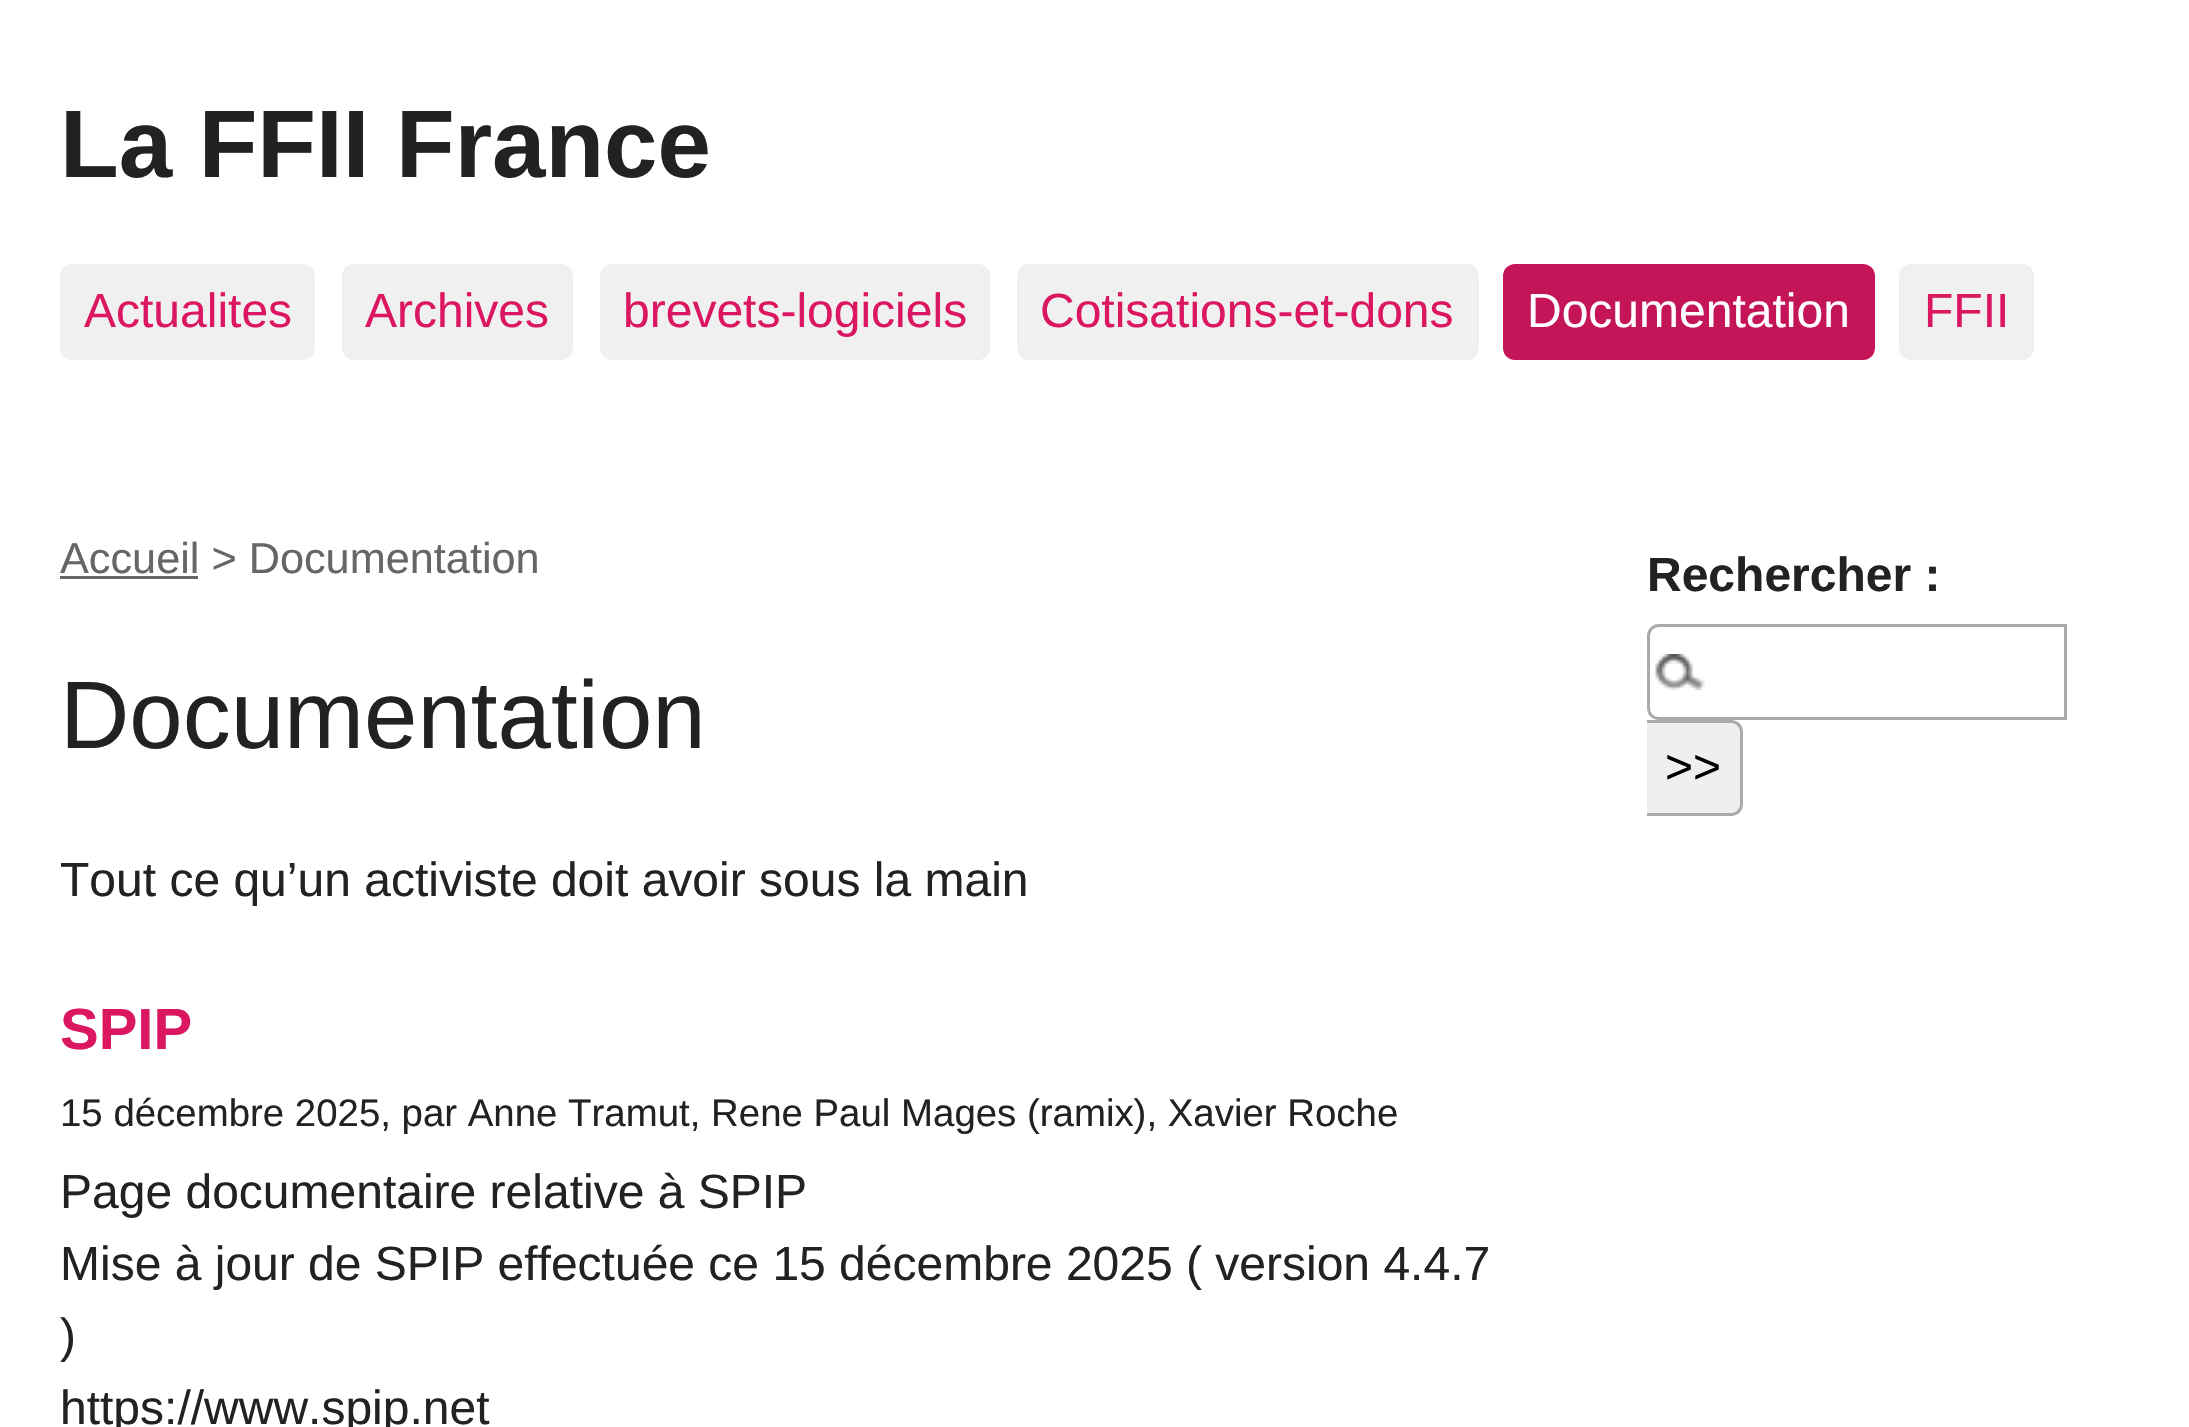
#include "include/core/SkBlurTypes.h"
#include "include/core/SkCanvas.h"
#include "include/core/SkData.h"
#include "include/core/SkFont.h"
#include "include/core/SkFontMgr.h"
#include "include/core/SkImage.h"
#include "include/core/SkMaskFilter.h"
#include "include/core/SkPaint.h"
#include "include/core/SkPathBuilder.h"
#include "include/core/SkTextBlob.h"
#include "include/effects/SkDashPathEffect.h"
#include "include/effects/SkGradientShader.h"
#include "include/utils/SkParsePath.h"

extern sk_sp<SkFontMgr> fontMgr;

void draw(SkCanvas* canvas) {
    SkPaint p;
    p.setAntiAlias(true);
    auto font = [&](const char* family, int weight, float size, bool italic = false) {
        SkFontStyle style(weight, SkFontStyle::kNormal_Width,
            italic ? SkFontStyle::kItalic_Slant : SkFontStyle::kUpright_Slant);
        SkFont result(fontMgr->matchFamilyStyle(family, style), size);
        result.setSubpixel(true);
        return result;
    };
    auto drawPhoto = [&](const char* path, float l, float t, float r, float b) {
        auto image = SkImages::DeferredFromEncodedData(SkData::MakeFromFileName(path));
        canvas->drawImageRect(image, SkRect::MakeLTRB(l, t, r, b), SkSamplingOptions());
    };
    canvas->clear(0xFFFFFFFF);
    auto font1 = font("Liberation Sans", 700, 96);
    p.setColor(0xFF222222);
    canvas->drawString("La FFII France", 60, 177, font1, p);
    p.setColor(0xFFF0F0F0);
    canvas->drawRoundRect(SkRect::MakeLTRB(60, 264, 315, 360), 12, 12, p);
    auto font2 = font("Liberation Sans", 400, 48);
    p.setColor(0xFFDB1762);
    canvas->drawString("Actualites", 84, 327, font2, p);
    p.setColor(0xFFF0F0F0);
    canvas->drawRoundRect(SkRect::MakeLTRB(342, 264, 573, 360), 12, 12, p);
    p.setColor(0xFFDB1762);
    canvas->drawString("Archives", 365, 327, font2, p);
    p.setColor(0xFFF0F0F0);
    canvas->drawRoundRect(SkRect::MakeLTRB(600, 264, 990, 360), 12, 12, p);
    p.setColor(0xFFDB1762);
    canvas->drawString("brevets-logiciels", 623, 327, font2, p);
    p.setColor(0xFFF0F0F0);
    canvas->drawRoundRect(SkRect::MakeLTRB(1017, 264, 1479, 360), 12, 12, p);
    p.setColor(0xFFDB1762);
    canvas->drawString("Cotisations-et-dons", 1040, 327, font2, p);
    p.setColor(0xFFC41558);
    canvas->drawRoundRect(SkRect::MakeLTRB(1503, 264, 1875, 360), 12, 12, p);
    p.setColor(0xFFFFFFFF);
    canvas->drawString("Documentation", 1527, 327, font2, p);
    p.setColor(0xFFF0F0F0);
    canvas->drawRoundRect(SkRect::MakeLTRB(1899, 264, 2034, 360), 12, 12, p);
    p.setColor(0xFFDB1762);
    canvas->drawString("FFII", 1924, 327, font2, p);
    auto font3 = font("Liberation Sans", 400, 43.25f);
    p.setColor(0xFF666666);
    canvas->drawString("Accueil > Documentation", 60, 573, font3, p);
    canvas->drawRect(SkRect::MakeLTRB(60, 576, 198, 579), p);
    auto font4 = font("Liberation Sans", 400, 96);
    p.setColor(0xFF222222);
    canvas->drawString("Documentation", 60, 748, font4, p);
    canvas->drawString("Tout ce qu’un activiste doit avoir sous la main", 60, 896, font2, p);
    auto font5 = font("Liberation Sans", 700, 58);
    p.setColor(0xFFDB1762);
    canvas->drawString("SPIP", 60, 1049, font5, p);
    auto font6 = font("Liberation Sans", 400, 38.4f);
    p.setColor(0xFF222222);
    canvas->drawString("15 décembre 2025, par Anne Tramut, Rene Paul Mages (ramix), Xavier Roche", 60, 1126, font6, p);
    {
        const struct { const char* s; float x, y; } items[] = {
            {"Page documentaire relative à SPIP", 60, 1208},
            {"Mise à jour de SPIP effectuée ce 15 décembre 2025 ( version 4.4.7", 60, 1280},
            {")", 60, 1352},
            {"https://www.spip.net", 60, 1424},
        };
        for (auto [s, x, y] : items) {
            canvas->drawString(s, x, y, font2, p);
        }
    }
    auto font7 = font("Liberation Sans", 700, 48);
    canvas->drawString("Rechercher :", 1647, 591, font7, p);
    drawPhoto("media/1.png", 1655, 654, 1705, 690);
    p.setStyle(SkPaint::kStroke_Style);
    p.setStrokeWidth(3);
    p.setColor(0xFFAAAAAA);
    canvas->drawPath(SkPathBuilder().moveTo(1659, 625.5f).lineTo(2065.5f, 625.5f).lineTo(2065.5f, 718.5f).lineTo(1659, 718.5f).cubicTo(1653, 718.5f, 1648.5f, 714, 1648.5f, 708).lineTo(1648.5f, 636).cubicTo(1648.5f, 630, 1653, 625.5f, 1659, 625.5f).close().detach(), p);
    p.setStyle(SkPaint::kFill_Style);
    p.setColor(0xFFEFEFEF);
    canvas->drawPath(SkPathBuilder().moveTo(1647, 720).lineTo(1731, 720).cubicTo(1737.5f, 720, 1743, 725.5f, 1743, 732).lineTo(1743, 804).cubicTo(1743, 810.5f, 1737.5f, 816, 1731, 816).lineTo(1647, 816).close().detach(), p);
    p.setColor(0xFFAAAAAA);
    canvas->drawPath(SkPathBuilder(SkPathFillType::kEvenOdd).moveTo(1647, 720).lineTo(1731, 720).cubicTo(1738, 720, 1743, 725, 1743, 732).lineTo(1743, 804).cubicTo(1743, 811, 1738, 816, 1731, 816).lineTo(1647, 816).close().moveTo(1647, 723).lineTo(1731, 723).cubicTo(1736, 723, 1740, 727, 1740, 732).lineTo(1740, 804).cubicTo(1740, 809, 1736, 813, 1731, 813).lineTo(1647, 813).close().detach(), p);
    p.setColor(0xFF000000);
    canvas->drawString(">>", 1665, 783, font2, p);
}
